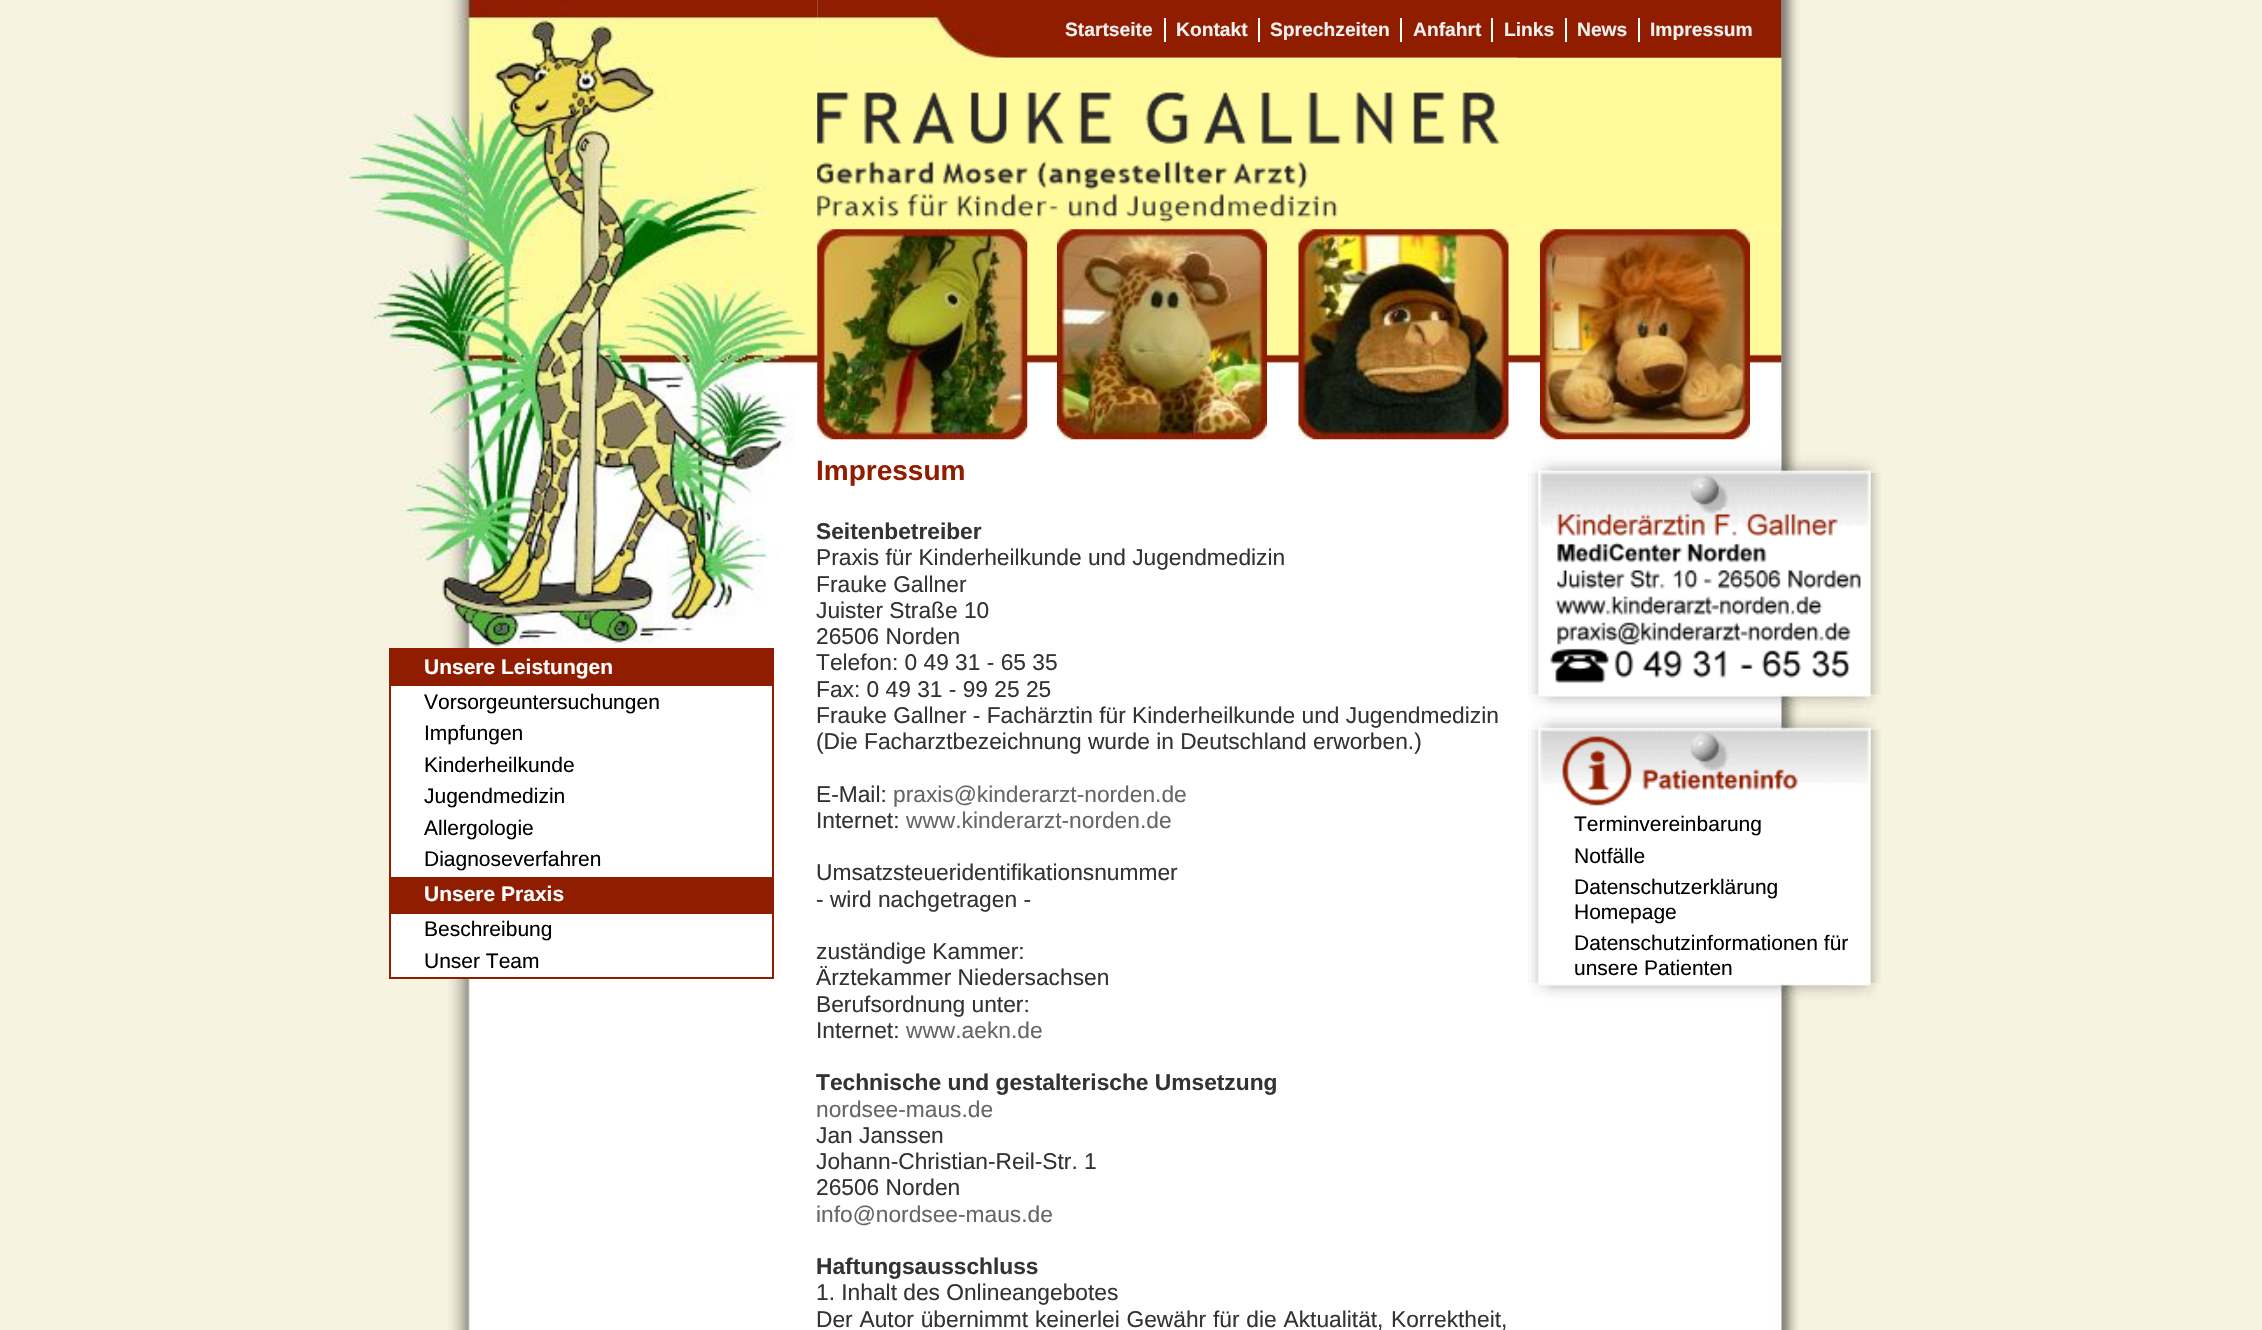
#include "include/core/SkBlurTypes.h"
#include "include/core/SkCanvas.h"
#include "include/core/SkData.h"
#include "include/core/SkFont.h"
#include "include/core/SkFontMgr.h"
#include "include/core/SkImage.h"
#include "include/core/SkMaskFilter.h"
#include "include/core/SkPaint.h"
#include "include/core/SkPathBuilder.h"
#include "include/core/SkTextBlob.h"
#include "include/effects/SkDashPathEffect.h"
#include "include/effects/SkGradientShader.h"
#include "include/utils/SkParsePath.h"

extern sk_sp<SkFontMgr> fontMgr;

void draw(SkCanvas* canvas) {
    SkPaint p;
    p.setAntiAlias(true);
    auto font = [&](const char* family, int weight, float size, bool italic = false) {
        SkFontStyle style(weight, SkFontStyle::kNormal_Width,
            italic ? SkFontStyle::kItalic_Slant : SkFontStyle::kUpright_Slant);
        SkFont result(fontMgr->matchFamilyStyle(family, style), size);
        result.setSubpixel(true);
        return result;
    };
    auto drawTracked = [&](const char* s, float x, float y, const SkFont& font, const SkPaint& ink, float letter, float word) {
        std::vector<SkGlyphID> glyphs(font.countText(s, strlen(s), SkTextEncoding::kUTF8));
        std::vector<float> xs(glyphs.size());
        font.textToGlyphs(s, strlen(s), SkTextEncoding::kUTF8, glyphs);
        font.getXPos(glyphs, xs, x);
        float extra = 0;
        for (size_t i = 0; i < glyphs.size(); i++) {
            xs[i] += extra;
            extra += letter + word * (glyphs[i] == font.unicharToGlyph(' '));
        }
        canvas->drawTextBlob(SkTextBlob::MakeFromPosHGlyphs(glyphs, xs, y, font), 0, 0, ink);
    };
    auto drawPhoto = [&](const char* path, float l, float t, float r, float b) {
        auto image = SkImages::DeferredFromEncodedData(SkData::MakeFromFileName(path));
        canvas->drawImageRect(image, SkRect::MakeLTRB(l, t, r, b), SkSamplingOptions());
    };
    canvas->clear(0xFFF6F3E0);
    drawPhoto("media/1.png", 448, 0, 1799, 1330);
    drawPhoto("media/3.png", 817, 0, 1782, 58);
    p.setColor(0xFFFFFB9C);
    canvas->drawRect(SkRect::MakeLTRB(817, 58, 1782, 229), p);
    drawPhoto("media/5.png", 817, 229, 1782, 439);
    drawPhoto("media/2.png", 344, 0, 818, 648);
    {
        const struct { float l, t, r, b; SkColor color; } items[] = {
            {391, 686, 471, 977, 0xFFFFFFFF},
            {389, 648, 774, 650, 0xFF911D00},
            {772, 648, 774, 978, 0xFF911D00},
            {389, 977, 774, 979, 0xFF911D00},
            {390, 875, 391, 877, 0xFFFFFFFF},
            {389, 648, 391, 978, 0xFF911D00},
            {391, 650, 772, 686, 0xFF911D00},
        };
        for (auto [l, t, r, b, color] : items) {
            p.setColor(color);
            canvas->drawRect(SkRect::MakeLTRB(l, t, r, b), p);
        }
    }
    auto font1 = font("Liberation Sans", 700, 21);
    p.setColor(0xFFFFFFFF);
    canvas->drawString("Unsere Leistungen", 424, 674, font1, p);
    auto font2 = font("Liberation Sans", 400, 21);
    p.setColor(0xFF000000);
    {
        const struct { const char* s; float x, y; } items[] = {
            {"Vorsorgeuntersuchungen", 424, 709},
            {"Impfungen", 424, 740},
            {"Kinderheilkunde", 424, 772},
            {"Jugendmedizin", 424, 803},
            {"Allergologie", 424, 835},
            {"Diagnoseverfahren", 424, 866},
        };
        for (auto [s, x, y] : items) {
            canvas->drawString(s, x, y, font2, p);
        }
    }
    p.setColor(0xFF911D00);
    canvas->drawRect(SkRect::MakeLTRB(391, 877, 772, 914), p);
    p.setColor(0xFFFFFFFF);
    canvas->drawString("Unsere Praxis", 424, 901, font1, p);
    p.setColor(0xFF000000);
    canvas->drawString("Beschreibung", 424, 936, font2, p);
    canvas->drawString("Unser Team", 424, 968, font2, p);
    auto font3 = font("Liberation Sans", 700, 19.25f);
    p.setColor(0xFFF0F0F0);
    canvas->drawString("Startseite", 1065, 36, font3, p);
    p.setColor(0xFFFFFFFF);
    canvas->drawRect(SkRect::MakeLTRB(1164, 18, 1166, 42), p);
    p.setColor(0xFFF0F0F0);
    canvas->drawString("Kontakt", 1176, 36, font3, p);
    p.setColor(0xFFFFFFFF);
    canvas->drawRect(SkRect::MakeLTRB(1258, 18, 1260, 42), p);
    p.setColor(0xFFF0F0F0);
    canvas->drawString("Sprechzeiten", 1270, 36, font3, p);
    p.setColor(0xFFFFFFFF);
    canvas->drawRect(SkRect::MakeLTRB(1400, 18, 1402, 42), p);
    p.setColor(0xFFF0F0F0);
    canvas->drawString("Anfahrt", 1413, 36, font3, p);
    p.setColor(0xFFFFFFFF);
    canvas->drawRect(SkRect::MakeLTRB(1491, 18, 1493, 42), p);
    p.setColor(0xFFF0F0F0);
    canvas->drawString("Links", 1504, 36, font3, p);
    p.setColor(0xFFFFFFFF);
    canvas->drawRect(SkRect::MakeLTRB(1565, 18, 1567, 42), p);
    p.setColor(0xFFF0F0F0);
    canvas->drawString("News", 1577, 36, font3, p);
    p.setColor(0xFFFFFFFF);
    canvas->drawRect(SkRect::MakeLTRB(1638, 18, 1640, 42), p);
    p.setColor(0xFFF0F0F0);
    canvas->drawString("Impressum", 1650, 36, font3, p);
    drawPhoto("media/4.png", 817, 57, 1518, 230);
    drawPhoto("media/6.png", 817, 229, 1028, 440);
    drawPhoto("media/7.png", 1057, 229, 1267, 440);
    drawPhoto("media/8.png", 1298, 229, 1509, 440);
    drawPhoto("media/9.png", 1540, 229, 1750, 440);
    p.setColor(0xFFFFFFFF);
    canvas->drawRect(SkRect::MakeLTRB(1778, 439, 1782, 455), p);
    drawPhoto("media/10.png", 1781, 0, 1800, 455);
    auto font4 = font("Liberation Sans", 700, 28);
    p.setColor(0xFF911D00);
    canvas->drawString("Impressum", 816, 480, font4, p);
    auto font5 = font("Liberation Sans", 700, 22.75f);
    p.setColor(0xFF333333);
    canvas->drawString("Seitenbetreiber", 816, 539, font5, p);
    auto font6 = font("Liberation Sans", 400, 22.75f);
    {
        const struct { const char* s; float x, y; } items[] = {
            {"Praxis für Kinderheilkunde und Jugendmedizin", 816, 565},
            {"Frauke Gallner", 816, 592},
            {"Juister Straße 10", 816, 618},
            {"26506 Norden", 816, 644},
            {"Telefon: 0 49 31 - 65 35", 816, 670},
            {"Fax: 0 49 31 - 99 25 25", 816, 697},
            {"Frauke Gallner - Fachärztin für Kinderheilkunde und Jugendmedizin", 816, 723},
            {"(Die Facharztbezeichnung wurde in Deutschland erworben.)", 816, 749},
            {"E-Mail:", 816, 802},
        };
        for (auto [s, x, y] : items) {
            canvas->drawString(s, x, y, font6, p);
        }
    }
    p.setColor(0xFF666666);
    canvas->drawString("praxis@kinderarzt-norden.de", 893, 802, font6, p);
    p.setColor(0xFF333333);
    canvas->drawString("Internet:", 816, 828, font6, p);
    p.setColor(0xFF666666);
    canvas->drawString("www.kinderarzt-norden.de", 906, 828, font6, p);
    p.setColor(0xFF333333);
    {
        const struct { const char* s; float x, y; } items[] = {
            {"Umsatzsteueridentifikationsnummer", 816, 880},
            {"- wird nachgetragen -", 816, 907},
            {"zuständige Kammer:", 816, 959},
            {"Ärztekammer Niedersachsen", 816, 985},
            {"Berufsordnung unter:", 816, 1012},
            {"Internet:", 816, 1038},
        };
        for (auto [s, x, y] : items) {
            canvas->drawString(s, x, y, font6, p);
        }
    }
    p.setColor(0xFF666666);
    canvas->drawString("www.aekn.de", 906, 1038, font6, p);
    p.setColor(0xFF333333);
    canvas->drawString("Technische und gestalterische Umsetzung", 816, 1090, font5, p);
    p.setColor(0xFF666666);
    canvas->drawString("nordsee-maus.de", 816, 1117, font6, p);
    p.setColor(0xFF333333);
    {
        const struct { const char* s; float x, y; } items[] = {
            {"Jan Janssen", 816, 1143},
            {"Johann-Christian-Reil-Str. 1", 816, 1169},
            {"26506 Norden", 816, 1195},
        };
        for (auto [s, x, y] : items) {
            canvas->drawString(s, x, y, font6, p);
        }
    }
    p.setColor(0xFF666666);
    canvas->drawString("info@nordsee-maus.de", 816, 1222, font6, p);
    p.setColor(0xFF333333);
    canvas->drawString("Haftungsausschluss", 816, 1274, font5, p);
    canvas->drawString("1. Inhalt des Onlineangebotes", 816, 1300, font6, p);
    drawTracked("Der Autor übernimmt keinerlei Gewähr für die Aktualität,", 816, 1327, font6, p, 0, 0.5f);
    canvas->drawString("Korrektheit,", 1391, 1327, font6, p);
    drawPhoto("media/12.png", 1528, 472, 1881, 695);
    drawPhoto("media/11.png", 1531, 455, 1879, 473);
    drawPhoto("media/13.png", 1540, 472, 1869, 695);
    drawPhoto("media/14.png", 1530, 694, 1877, 712);
    drawPhoto("media/16.png", 1528, 729, 1881, 984);
    drawPhoto("media/15.png", 1531, 712, 1879, 730);
    drawPhoto("media/17.png", 1540, 729, 1869, 808);
    p.setColor(0xFFFFFFFF);
    canvas->drawRect(SkRect::MakeLTRB(1863, 809, 1869, 928), p);
    p.setColor(0xFF000000);
    {
        const struct { const char* s; float x, y; } items[] = {
            {"Terminvereinbarung", 1574, 831},
            {"Notfälle", 1574, 863},
            {"Datenschutzerklärung", 1574, 894},
            {"Homepage", 1574, 919},
        };
        for (auto [s, x, y] : items) {
            canvas->drawString(s, x, y, font2, p);
        }
    }
    p.setColor(0xFFFFFFFF);
    canvas->drawRect(SkRect::MakeLTRB(1781, 928, 1869, 984), p);
    p.setColor(0xFF000000);
    canvas->drawString("Datenschutzinformationen für", 1574, 950, font2, p);
    canvas->drawString("unsere Patienten", 1574, 975, font2, p);
    drawPhoto("media/18.png", 1530, 983, 1877, 1001);
}
